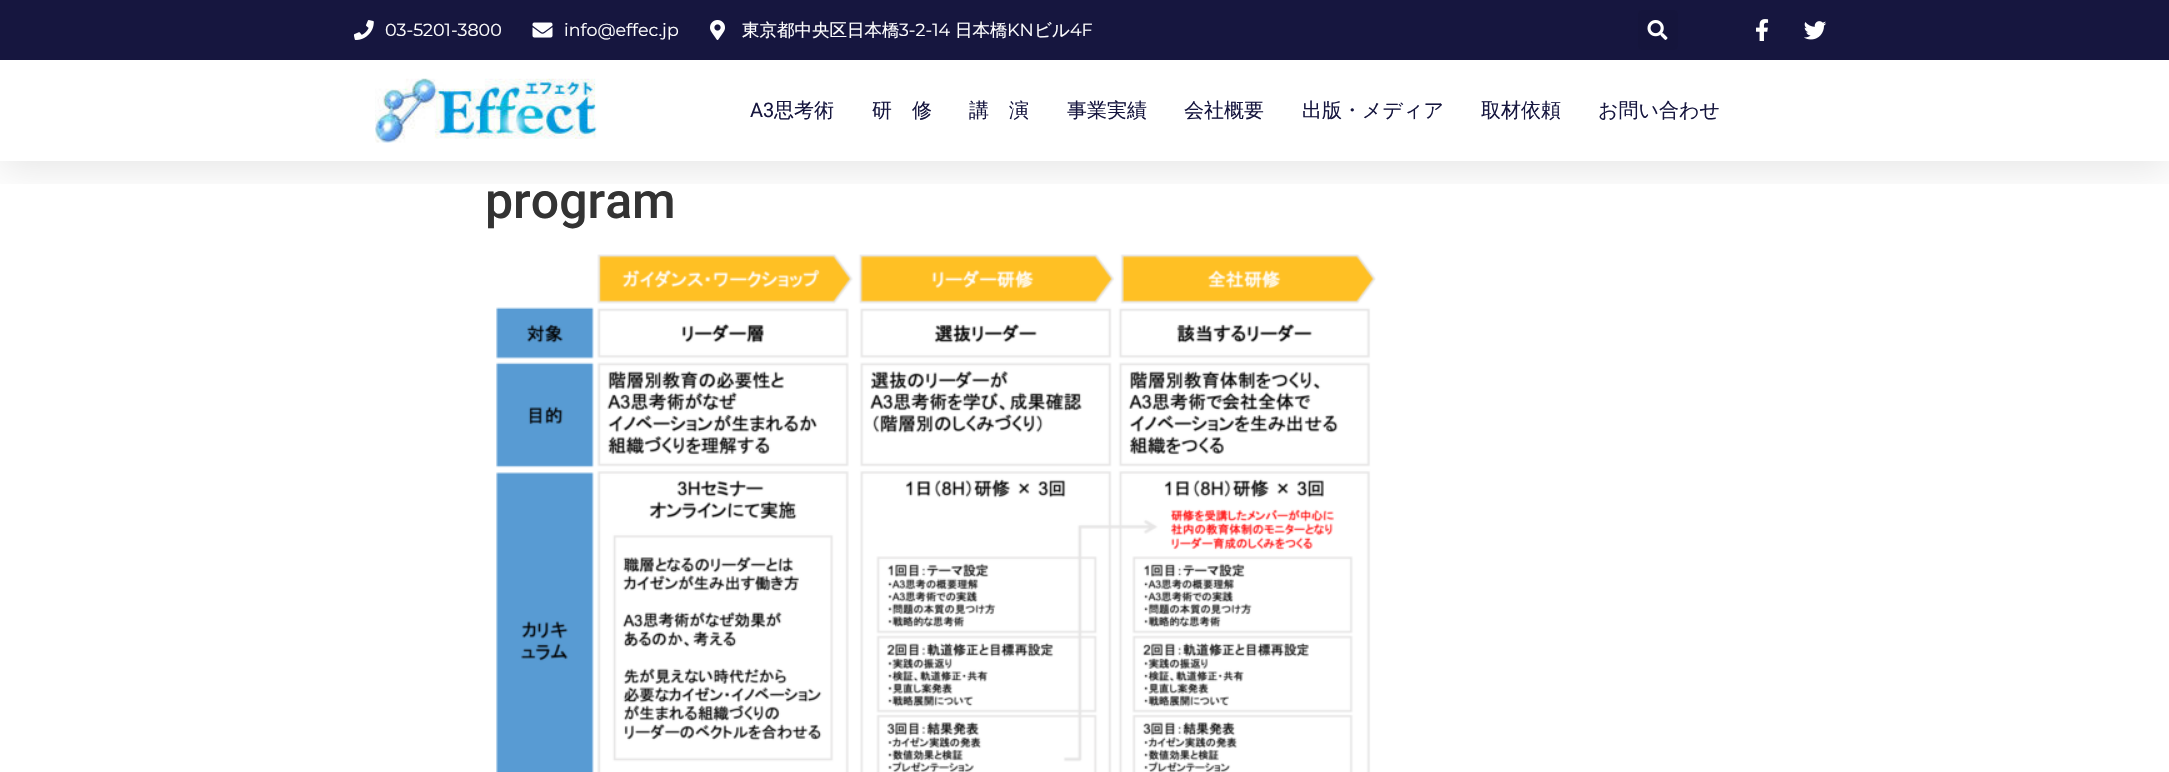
#include "include/core/SkBlurTypes.h"
#include "include/core/SkCanvas.h"
#include "include/core/SkData.h"
#include "include/core/SkFont.h"
#include "include/core/SkFontMgr.h"
#include "include/core/SkImage.h"
#include "include/core/SkMaskFilter.h"
#include "include/core/SkPaint.h"
#include "include/core/SkPathBuilder.h"
#include "include/core/SkTextBlob.h"
#include "include/effects/SkDashPathEffect.h"
#include "include/effects/SkGradientShader.h"
#include "include/utils/SkParsePath.h"

extern sk_sp<SkFontMgr> fontMgr;

void draw(SkCanvas* canvas) {
    SkPaint p;
    p.setAntiAlias(true);
    auto font = [&](const char* family, int weight, float size, bool italic = false) {
        SkFontStyle style(weight, SkFontStyle::kNormal_Width,
            italic ? SkFontStyle::kItalic_Slant : SkFontStyle::kUpright_Slant);
        SkFont result(fontMgr->matchFamilyStyle(family, style), size);
        result.setSubpixel(true);
        return result;
    };
    auto drawPhoto = [&](const char* path, float l, float t, float r, float b) {
        auto image = SkImages::DeferredFromEncodedData(SkData::MakeFromFileName(path));
        canvas->drawImageRect(image, SkRect::MakeLTRB(l, t, r, b), SkSamplingOptions());
    };
    canvas->clear(0xFFFFFFFF);
    canvas->save();
    canvas->clipRect(SkRect::MakeLTRB(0, 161, 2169, 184));
    p.setColor(0x1A000000);
    p.setMaskFilter(SkMaskFilter::MakeBlur(kNormal_SkBlurStyle, 19));
    canvas->drawRect(SkRect::MakeLTRB(0, 6, 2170, 168), p);
    p.setMaskFilter(nullptr);
    canvas->restore();
    p.setColor(0xFF16163F);
    canvas->drawRect(SkRect::MakeLTRB(0, 0, 2169, 60), p);
    drawPhoto("media/1.png", 354, 20, 374, 40);
    auto font1 = font("Montserrat", 400, 17.5f);
    p.setColor(0xFFFFFFFF);
    canvas->drawString("03-5201-3800", 385, 36, font1, p);
    drawPhoto("media/2.png", 532, 22, 553, 38);
    canvas->drawString("info@effec.jp", 564, 36, font1, p);
    drawPhoto("media/3.png", 710, 20, 725, 40);
    auto font2 = font("WenQuanYi Zen Hei", 500, 17.5f);
    canvas->drawString("東京都中央区日本橋", 742, 36, font2, p);
    canvas->drawString("3-2-14", 899, 36, font1, p);
    canvas->drawString("日本橋", 955, 36, font2, p);
    canvas->drawString("KN", 1007, 36, font1, p);
    canvas->drawString("ビル", 1034, 36, font2, p);
    canvas->drawString("4F", 1070, 36, font1, p);
    p.setColor(0xFF15153C);
    canvas->drawRoundRect(SkRect::MakeLTRB(1638, 10, 1678, 50), 4, 4, p);
    drawPhoto("media/4.png", 1647, 20, 1668, 40);
    drawPhoto("media/5.png", 1756, 19, 1769, 41);
    drawPhoto("media/6.png", 1804, 21, 1827, 40);
    drawPhoto("media/7.png", 375, 78, 597, 143);
    auto font3 = font("Roboto", 400, 20);
    p.setColor(0xFF16163F);
    canvas->drawString("A3", 750, 117, font3, p);
    auto font4 = font("WenQuanYi Zen Hei", 500, 20);
    {
        const struct { const char* s; float x, y; } items[] = {
            {"思考術", 774, 117},
            {"研　修", 872, 117},
            {"講　演", 969, 117},
            {"事業実績", 1067, 117},
            {"会社概要", 1184, 117},
            {"出版・メディア", 1302, 117},
            {"取材依頼", 1481, 117},
            {"お問い合わせ", 1598, 117},
        };
        for (auto [s, x, y] : items) {
            canvas->drawString(s, x, y, font4, p);
        }
    }
    auto font5 = font("Roboto", 500, 50);
    p.setColor(0xFF333333);
    canvas->drawString("program", 485, 218, font5, p);
    drawPhoto("media/8.png", 496, 254, 1376, 772);
}
